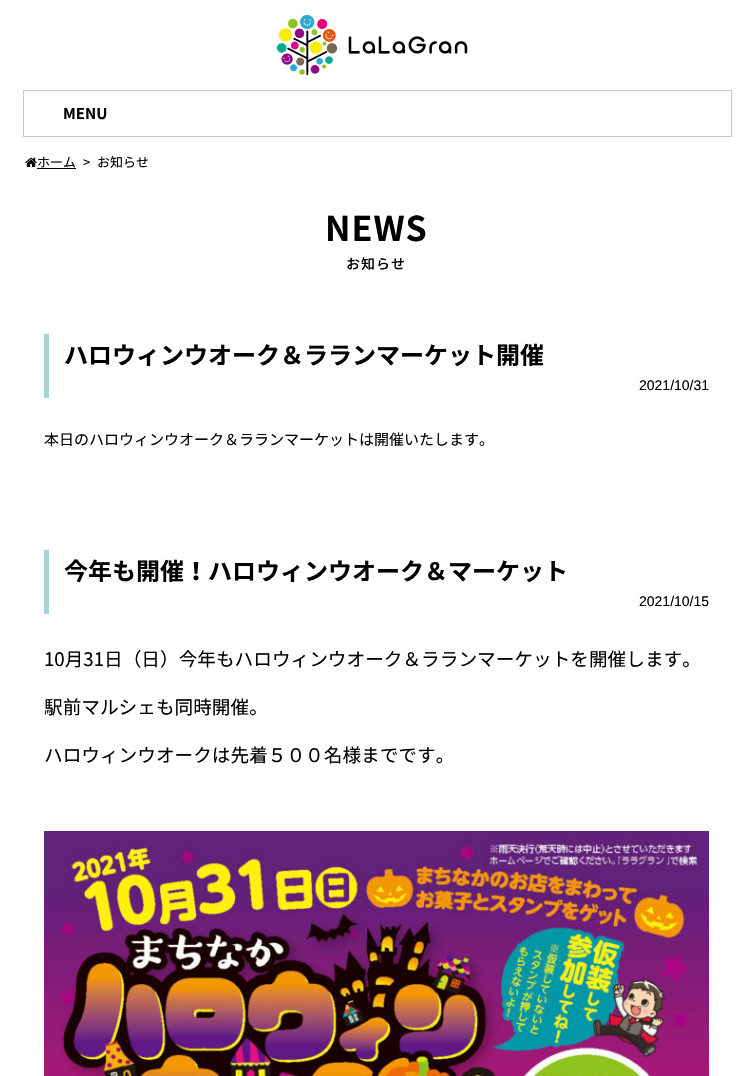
#include "include/core/SkBlurTypes.h"
#include "include/core/SkCanvas.h"
#include "include/core/SkData.h"
#include "include/core/SkFont.h"
#include "include/core/SkFontMgr.h"
#include "include/core/SkImage.h"
#include "include/core/SkMaskFilter.h"
#include "include/core/SkPaint.h"
#include "include/core/SkPathBuilder.h"
#include "include/core/SkTextBlob.h"
#include "include/effects/SkDashPathEffect.h"
#include "include/effects/SkGradientShader.h"
#include "include/utils/SkParsePath.h"

extern sk_sp<SkFontMgr> fontMgr;

void draw(SkCanvas* canvas) {
    SkPaint p;
    p.setAntiAlias(true);
    auto font = [&](const char* family, int weight, float size, bool italic = false) {
        SkFontStyle style(weight, SkFontStyle::kNormal_Width,
            italic ? SkFontStyle::kItalic_Slant : SkFontStyle::kUpright_Slant);
        SkFont result(fontMgr->matchFamilyStyle(family, style), size);
        result.setSubpixel(true);
        return result;
    };
    auto drawTracked = [&](const char* s, float x, float y, const SkFont& font, const SkPaint& ink, float letter, float word) {
        std::vector<SkGlyphID> glyphs(font.countText(s, strlen(s), SkTextEncoding::kUTF8));
        std::vector<float> xs(glyphs.size());
        font.textToGlyphs(s, strlen(s), SkTextEncoding::kUTF8, glyphs);
        font.getXPos(glyphs, xs, x);
        float extra = 0;
        for (size_t i = 0; i < glyphs.size(); i++) {
            xs[i] += extra;
            extra += letter + word * (glyphs[i] == font.unicharToGlyph(' '));
        }
        canvas->drawTextBlob(SkTextBlob::MakeFromPosHGlyphs(glyphs, xs, y, font), 0, 0, ink);
    };
    auto drawPhoto = [&](const char* path, float l, float t, float r, float b) {
        auto image = SkImages::DeferredFromEncodedData(SkData::MakeFromFileName(path));
        canvas->drawImageRect(image, SkRect::MakeLTRB(l, t, r, b), SkSamplingOptions());
    };
    canvas->clear(0xFFFFFFFF);
    drawPhoto("media/1.png", 277, 15, 468, 75);
    p.setStyle(SkPaint::kStroke_Style);
    p.setStrokeWidth(1);
    p.setColor(0xFFC7C9C9);
    canvas->drawRect(SkRect::MakeLTRB(23.5f, 90.5f, 731.5f, 136.5f), p);
    auto font1 = font("Noto Sans JP", 700, 15);
    p.setStyle(SkPaint::kFill_Style);
    p.setColor(0xFF000000);
    canvas->drawString("MENU", 63, 119, font1, p);
    drawPhoto("media/2.png", 25, 157, 37, 167);
    auto font2 = font("Noto Sans JP", 400, 13);
    canvas->drawString("ホーム", 37, 167, font2, p);
    canvas->drawRect(SkRect::MakeLTRB(37, 168, 76, 169), p);
    canvas->drawString(">", 83, 167, font2, p);
    canvas->drawString("お知らせ", 97, 167, font2, p);
    auto font3 = font("Noto Sans JP", 700, 34);
    drawTracked("NEWS", 325, 241, font3, p, 1, 0);
    auto font4 = font("Noto Sans JP", 500, 14);
    drawTracked("お知らせ", 346, 269, font4, p, 1, 0);
    p.setColor(0xFFA5D3D6);
    canvas->drawRect(SkRect::MakeLTRB(44, 334, 49, 398), p);
    auto font5 = font("Noto Sans JP", 700, 24);
    p.setColor(0xFF000000);
    canvas->drawString("ハロウィンウオーク＆ラランマーケット開催", 64, 364, font5, p);
    auto font6 = font("Liberation Sans", 400, 14);
    canvas->drawString("2021/10/31", 639, 390, font6, p);
    auto font7 = font("Noto Sans JP", 400, 15);
    canvas->drawString("本日のハロウィンウオーク＆ラランマーケットは開催いたします。", 44, 445, font7, p);
    p.setColor(0xFFA5D3D6);
    canvas->drawRect(SkRect::MakeLTRB(44, 550, 49, 614), p);
    p.setColor(0xFF000000);
    canvas->drawString("今年も開催！ハロウィンウオーク＆マーケット", 64, 580, font5, p);
    canvas->drawString("2021/10/15", 639, 606, font6, p);
    auto font8 = font("Noto Sans JP", 400, 18.65f);
    {
        const struct { const char* s; float x, y; } items[] = {
            {"10月31日（日）今年もハロウィンウオーク＆ラランマーケットを開催します。", 44, 666},
            {"駅前マルシェも同時開催。", 44, 714},
            {"ハロウィンウオークは先着５００名様までです。", 44, 762},
        };
        for (auto [s, x, y] : items) {
            canvas->drawString(s, x, y, font8, p);
        }
    }
    drawPhoto("media/3.png", 44, 831, 709, 1076);
}
